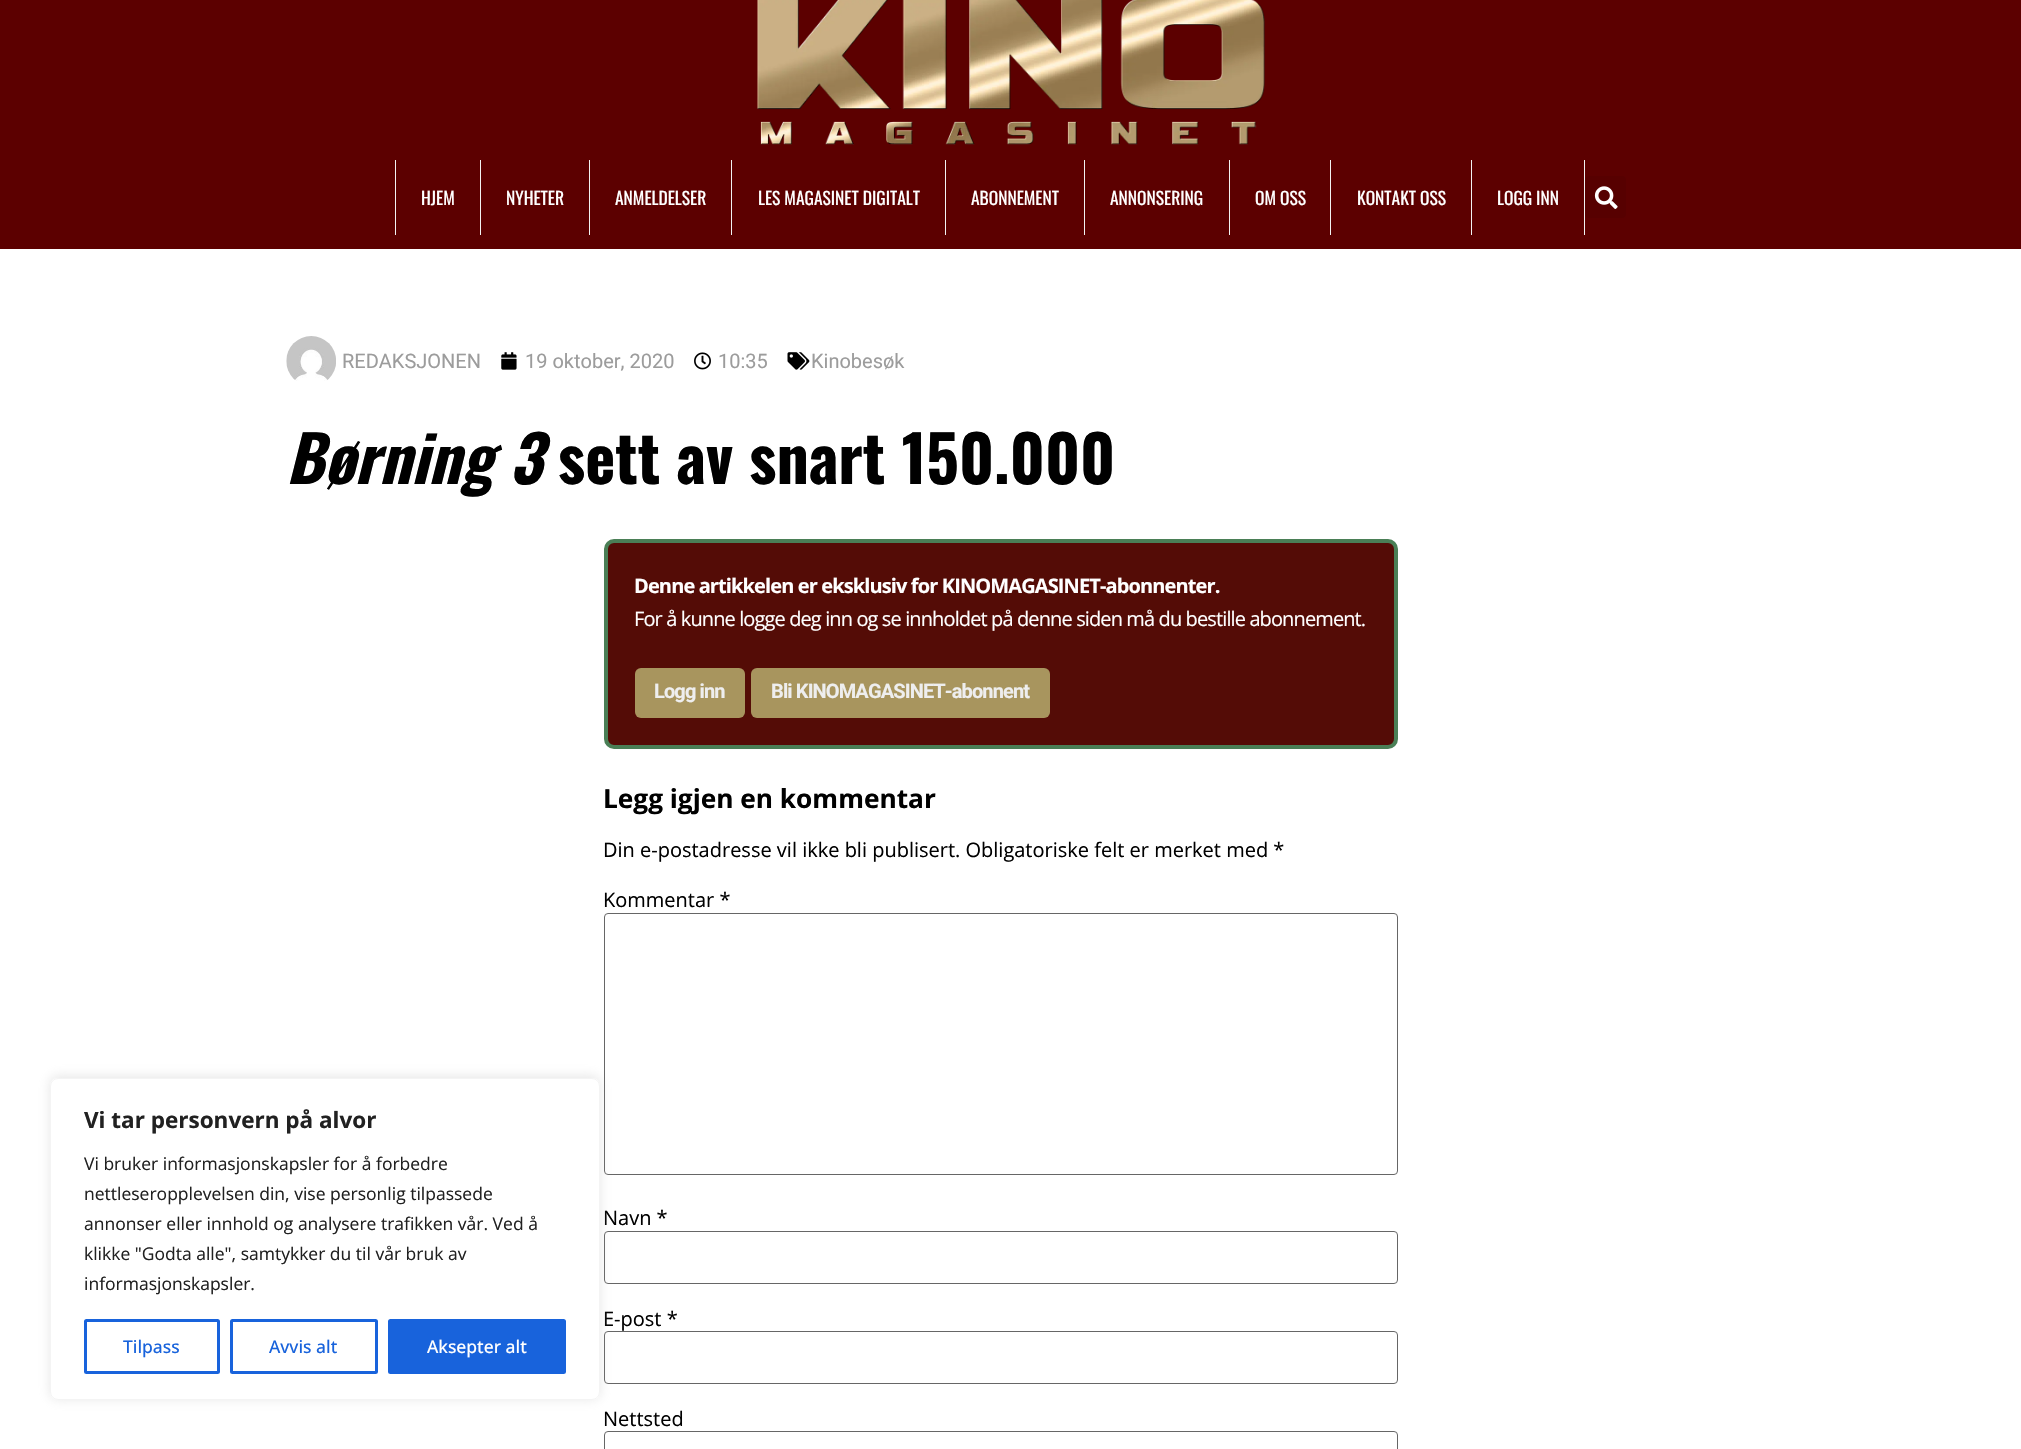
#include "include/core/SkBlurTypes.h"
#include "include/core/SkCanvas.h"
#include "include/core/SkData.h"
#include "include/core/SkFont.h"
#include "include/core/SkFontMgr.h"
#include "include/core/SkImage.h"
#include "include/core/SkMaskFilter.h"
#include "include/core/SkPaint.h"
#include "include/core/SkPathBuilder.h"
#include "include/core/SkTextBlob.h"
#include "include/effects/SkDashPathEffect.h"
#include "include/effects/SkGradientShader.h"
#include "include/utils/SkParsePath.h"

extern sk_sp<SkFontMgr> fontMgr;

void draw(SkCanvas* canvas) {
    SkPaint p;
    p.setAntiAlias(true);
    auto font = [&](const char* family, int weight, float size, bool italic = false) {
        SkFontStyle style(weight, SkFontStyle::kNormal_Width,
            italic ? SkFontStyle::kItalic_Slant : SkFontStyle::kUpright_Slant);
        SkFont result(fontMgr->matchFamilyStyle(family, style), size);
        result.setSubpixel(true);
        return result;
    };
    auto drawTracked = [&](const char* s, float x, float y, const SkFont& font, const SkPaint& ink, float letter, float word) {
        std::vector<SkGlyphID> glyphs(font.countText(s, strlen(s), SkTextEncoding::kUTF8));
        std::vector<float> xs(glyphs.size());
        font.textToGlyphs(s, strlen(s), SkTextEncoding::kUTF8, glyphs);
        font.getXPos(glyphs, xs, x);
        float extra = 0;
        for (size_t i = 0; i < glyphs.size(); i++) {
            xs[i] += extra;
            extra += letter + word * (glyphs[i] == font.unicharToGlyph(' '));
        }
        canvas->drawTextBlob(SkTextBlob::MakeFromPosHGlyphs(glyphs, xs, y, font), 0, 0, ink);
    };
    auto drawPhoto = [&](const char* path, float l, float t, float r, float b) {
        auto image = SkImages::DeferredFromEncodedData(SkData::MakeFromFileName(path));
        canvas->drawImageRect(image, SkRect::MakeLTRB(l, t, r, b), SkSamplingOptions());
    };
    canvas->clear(0xFFFFFFFF);
    p.setColor(0xFF5C0000);
    canvas->drawRect(SkRect::MakeLTRB(0, 0, 2021, 249), p);
    drawPhoto("media/1.png", 757, 0, 1265, 145);
    p.setColor(0xFFF2F2F2);
    canvas->drawRect(SkRect::MakeLTRB(395, 160, 396, 235), p);
    auto font1 = font("Oswald", 400, 17.5f);
    p.setColor(0xFFFFFFFF);
    canvas->drawString("HJEM", 421, 205, font1, p);
    p.setColor(0xFFF2F2F2);
    canvas->drawRect(SkRect::MakeLTRB(480, 160, 481, 235), p);
    p.setColor(0xFFFFFFFF);
    canvas->drawString("NYHETER", 506, 205, font1, p);
    p.setColor(0xFFF2F2F2);
    canvas->drawRect(SkRect::MakeLTRB(589, 160, 590, 235), p);
    p.setColor(0xFFFFFFFF);
    canvas->drawString("ANMELDELSER", 615, 205, font1, p);
    p.setColor(0xFFF2F2F2);
    canvas->drawRect(SkRect::MakeLTRB(731, 160, 732, 235), p);
    p.setColor(0xFFFFFFFF);
    canvas->drawString("LES MAGASINET DIGITALT", 758, 205, font1, p);
    p.setColor(0xFFF2F2F2);
    canvas->drawRect(SkRect::MakeLTRB(945, 160, 946, 235), p);
    p.setColor(0xFFFFFFFF);
    canvas->drawString("ABONNEMENT", 971, 205, font1, p);
    p.setColor(0xFFF2F2F2);
    canvas->drawRect(SkRect::MakeLTRB(1084, 160, 1085, 235), p);
    p.setColor(0xFFFFFFFF);
    canvas->drawString("ANNONSERING", 1110, 205, font1, p);
    p.setColor(0xFFF2F2F2);
    canvas->drawRect(SkRect::MakeLTRB(1229, 160, 1230, 235), p);
    p.setColor(0xFFFFFFFF);
    canvas->drawString("OM OSS", 1255, 205, font1, p);
    p.setColor(0xFFF2F2F2);
    canvas->drawRect(SkRect::MakeLTRB(1330, 160, 1331, 235), p);
    p.setColor(0xFFFFFFFF);
    canvas->drawString("KONTAKT OSS", 1357, 205, font1, p);
    p.setColor(0xFFF2F2F2);
    canvas->drawRect(SkRect::MakeLTRB(1584, 160, 1585, 235), p);
    canvas->drawRect(SkRect::MakeLTRB(1471, 160, 1472, 235), p);
    p.setColor(0xFFFFFFFF);
    canvas->drawString("LOGG INN", 1497, 205, font1, p);
    p.setColor(0xFF570000);
    canvas->drawRoundRect(SkRect::MakeLTRB(1585, 176, 1626, 218), 4, 4, p);
    drawPhoto("media/2.png", 1594, 186, 1618, 209);
    drawPhoto("media/3.png", 286, 336, 336, 381);
    auto font2 = font("Roboto", 400, 20);
    p.setColor(0xFF9C9C9C);
    canvas->drawString("REDAKSJONEN", 342, 368, font2, p);
    drawPhoto("media/4.png", 501, 352, 517, 370);
    canvas->drawString("19 oktober, 2020", 525, 368, font2, p);
    drawPhoto("media/5.png", 694, 352, 711, 370);
    canvas->drawString("10:35", 718, 368, font2, p);
    drawPhoto("media/6.png", 787, 352, 810, 370);
    canvas->drawString("Kinobesøk", 811, 368, font2, p);
    auto font3 = font("Oswald", 700, 64, true);
    p.setColor(0xFF000000);
    canvas->drawString("Børning 3", 286, 484, font3, p);
    auto font4 = font("Oswald", 700, 64);
    canvas->drawString("sett av snart 150.000", 558, 484, font4, p);
    p.setColor(0xFF540C06);
    canvas->drawRoundRect(SkRect::MakeLTRB(606, 541, 1396, 747), 8, 8, p);
    p.setStyle(SkPaint::kStroke_Style);
    p.setStrokeWidth(4);
    p.setColor(0xFF4A7F56);
    canvas->drawRoundRect(SkRect::MakeLTRB(606, 541, 1396, 747), 8, 8, p);
    auto font5 = font("Open Sans", 700, 20);
    p.setStyle(SkPaint::kFill_Style);
    p.setColor(0xFFFFFFFF);
    drawTracked("Denne artikkelen er eksklusiv for KINOMAGASINET-abonnenter.", 634, 593, font5, p, -0.88f, 0);
    auto font6 = font("Open Sans", 400, 20);
    drawTracked("For å kunne logge deg inn og se innholdet på denne siden må du bestille abonnement.", 634, 626, font6, p, -0.88f, 0);
    p.setColor(0xFFA8955E);
    canvas->drawRoundRect(SkRect::MakeLTRB(635, 668, 745, 718), 6, 6, p);
    auto font7 = font("Roboto", 700, 20);
    p.setColor(0xFFEEEEEE);
    drawTracked("Logg inn", 654, 698, font7, p, -0.88f, 0);
    p.setColor(0xFFA8955E);
    canvas->drawRoundRect(SkRect::MakeLTRB(751, 668, 1050, 718), 6, 6, p);
    p.setColor(0xFFEEEEEE);
    drawTracked("Bli KINOMAGASINET-abonnent", 771, 698, font7, p, -0.88f, 0);
    auto font8 = font("Open Sans", 700, 26.25f);
    p.setColor(0xFF000000);
    canvas->drawString("Legg igjen en kommentar", 603, 808, font8, p);
    canvas->drawString("Din e-postadresse vil ikke bli publisert. Obligatoriske felt er merket med *", 603, 857, font6, p);
    canvas->drawString("Kommentar *", 603, 907, font6, p);
    p.setStyle(SkPaint::kStroke_Style);
    p.setStrokeWidth(1);
    p.setColor(0xFF666666);
    canvas->drawRoundRect(SkRect::MakeLTRB(604.5f, 913.5f, 1397.5f, 1174.5f), 3.5f, 3.5f, p);
    p.setStyle(SkPaint::kFill_Style);
    p.setColor(0xFF000000);
    canvas->drawString("Navn *", 603, 1225, font6, p);
    p.setStyle(SkPaint::kStroke_Style);
    p.setColor(0xFF666666);
    canvas->drawRoundRect(SkRect::MakeLTRB(604.5f, 1231.5f, 1397.5f, 1283.5f), 3.5f, 3.5f, p);
    p.setStyle(SkPaint::kFill_Style);
    p.setColor(0xFF000000);
    canvas->drawString("E-post *", 603, 1326, font6, p);
    p.setStyle(SkPaint::kStroke_Style);
    p.setColor(0xFF666666);
    canvas->drawRoundRect(SkRect::MakeLTRB(604.5f, 1331.5f, 1397.5f, 1383.5f), 3.5f, 3.5f, p);
    p.setStyle(SkPaint::kFill_Style);
    p.setColor(0xFF000000);
    canvas->drawString("Nettsted", 603, 1426, font6, p);
    p.setStyle(SkPaint::kStroke_Style);
    p.setColor(0xFF666666);
    canvas->drawRoundRect(SkRect::MakeLTRB(604.5f, 1431.5f, 1397.5f, 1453.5f), 3.5f, 3.5f, p);
    canvas->save();
    canvas->clipPath(SkPathBuilder(SkPathFillType::kEvenOdd).moveTo(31, 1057).lineTo(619, 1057).lineTo(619, 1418).lineTo(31, 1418).close().moveTo(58, 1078).lineTo(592, 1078).cubicTo(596.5f, 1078, 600, 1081.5f, 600, 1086).lineTo(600, 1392).cubicTo(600, 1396.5f, 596.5f, 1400, 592, 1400).lineTo(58, 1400).cubicTo(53.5f, 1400, 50, 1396.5f, 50, 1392).lineTo(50, 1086).cubicTo(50, 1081.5f, 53.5f, 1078, 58, 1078).close().detach(), true);
    p.setStyle(SkPaint::kFill_Style);
    p.setColor(0x4DACABAB);
    p.setMaskFilter(SkMaskFilter::MakeBlur(kNormal_SkBlurStyle, 6));
    canvas->drawRoundRect(SkRect::MakeLTRB(50, 1076, 600, 1399), 8, 8, p);
    p.setMaskFilter(nullptr);
    canvas->restore();
    p.setStyle(SkPaint::kStroke_Style);
    p.setColor(0xFFF4F4F4);
    canvas->drawRoundRect(SkRect::MakeLTRB(50.5f, 1078.5f, 599.5f, 1399.5f), 7.5f, 7.5f, p);
    auto font9 = font("Open Sans", 700, 22.5f);
    p.setStyle(SkPaint::kFill_Style);
    p.setColor(0xFF212121);
    canvas->drawString("Vi tar personvern på alvor", 84, 1128, font9, p);
    auto font10 = font("Open Sans", 400, 17.5f);
    {
        const struct { const char* s; float x, y; } items[] = {
            {"Vi bruker informasjonskapsler for å forbedre", 84, 1170},
            {"nettleseropplevelsen din, vise personlig tilpassede", 84, 1200},
            {"annonser eller innhold og analysere trafikken vår. Ved å", 84, 1230},
            {"klikke \"Godta alle\", samtykker du til vår bruk av", 84, 1260},
            {"informasjonskapsler.", 84, 1290},
        };
        for (auto [s, x, y] : items) {
            canvas->drawString(s, x, y, font10, p);
        }
    }
    p.setStyle(SkPaint::kStroke_Style);
    p.setStrokeWidth(3);
    p.setColor(0xFF1863DC);
    canvas->drawRoundRect(SkRect::MakeLTRB(85.5f, 1320.5f, 218.5f, 1372.5f), 1, 1, p);
    auto font11 = font("Open Sans", 500, 17.5f);
    p.setStyle(SkPaint::kFill_Style);
    canvas->drawString("Tilpass", 123, 1353, font11, p);
    p.setStyle(SkPaint::kStroke_Style);
    canvas->drawRoundRect(SkRect::MakeLTRB(231.5f, 1320.5f, 376.5f, 1372.5f), 1, 1, p);
    p.setStyle(SkPaint::kFill_Style);
    canvas->drawString("Avvis alt", 269, 1353, font11, p);
    canvas->drawRoundRect(SkRect::MakeLTRB(389.5f, 1320.5f, 564.5f, 1372.5f), 1, 1, p);
    p.setStyle(SkPaint::kStroke_Style);
    canvas->drawRoundRect(SkRect::MakeLTRB(389.5f, 1320.5f, 564.5f, 1372.5f), 1, 1, p);
    p.setStyle(SkPaint::kFill_Style);
    p.setColor(0xFFFFFFFF);
    canvas->drawString("Aksepter alt", 427, 1353, font11, p);
}
